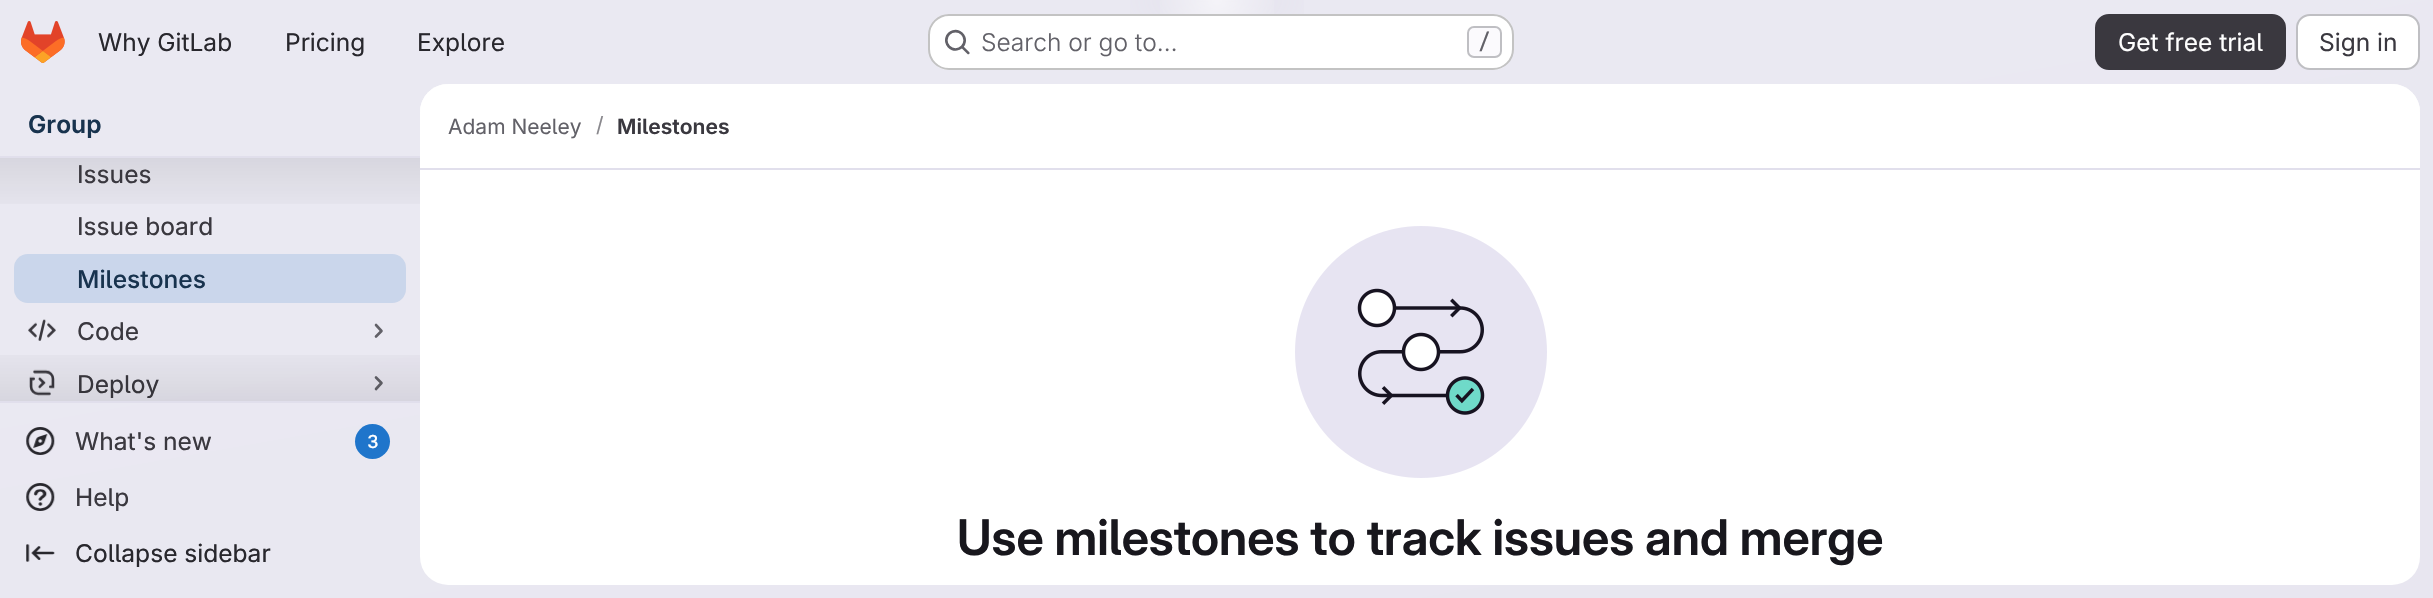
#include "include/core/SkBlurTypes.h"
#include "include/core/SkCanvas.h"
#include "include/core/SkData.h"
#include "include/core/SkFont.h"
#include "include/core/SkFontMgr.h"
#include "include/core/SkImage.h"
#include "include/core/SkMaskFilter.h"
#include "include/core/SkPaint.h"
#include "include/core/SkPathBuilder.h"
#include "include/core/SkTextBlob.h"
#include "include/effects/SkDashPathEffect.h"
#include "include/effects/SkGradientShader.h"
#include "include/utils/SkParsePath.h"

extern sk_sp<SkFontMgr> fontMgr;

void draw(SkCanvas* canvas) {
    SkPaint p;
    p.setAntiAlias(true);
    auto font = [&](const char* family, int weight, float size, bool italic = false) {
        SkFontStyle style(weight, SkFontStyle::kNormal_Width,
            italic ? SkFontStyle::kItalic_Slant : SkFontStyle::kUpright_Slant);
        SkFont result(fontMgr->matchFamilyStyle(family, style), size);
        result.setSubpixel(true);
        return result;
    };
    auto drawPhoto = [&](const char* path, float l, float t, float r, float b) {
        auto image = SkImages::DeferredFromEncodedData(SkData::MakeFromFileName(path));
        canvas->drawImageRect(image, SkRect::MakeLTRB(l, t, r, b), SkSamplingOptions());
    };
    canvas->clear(0xFFFFFFFF);
    {
        const SkColor colors[] = {0xFFE8E6F0, 0xFFEAE9F2};
        const float stops[] = {0, 0.7f};
        const SkPoint ends[] = {{1305, 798}, {1129, -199}};
        p.setShader(SkGradientShader::MakeLinear(ends, colors, stops, 2, SkTileMode::kClamp));
        p.setAlpha(255);
    }
    canvas->drawRect(SkRect::MakeLTRB(0, 0, 2433, 598), p);
    {
        const SkColor colors[] = {0xFFE4E2ED, 0x00E4E2ED};
        const float stops[] = {0, 0.1f};
        SkMatrix m = SkMatrix::Translate(1217, 0).preScale(1217, 599);
        p.setShader(SkGradientShader::MakeRadial({0, 0}, 1, colors, stops, 2, SkTileMode::kClamp, 0, &m));
        p.setAlpha(255);
    }
    canvas->drawRect(SkRect::MakeLTRB(1130, 0, 1304, 14), p);
    {
        const SkColor colors[] = {0xFFE4E2EC, 0x00E4E2EC};
        const float stops[] = {0, 0.07f};
        SkMatrix m = SkMatrix::Translate(1217, 0).preScale(1217, 599);
        p.setShader(SkGradientShader::MakeRadial({0, 0}, 1, colors, stops, 2, SkTileMode::kClamp, 0, &m));
        p.setAlpha(255);
    }
    canvas->drawRect(SkRect::MakeLTRB(1196, 1, 1238, 2), p);
    {
        const SkColor colors[] = {0x99FFFFFF, 0x00FFFFFF};
        const float stops[] = {0, 0.05f};
        p.setShader(SkGradientShader::MakeRadial({1217, 0}, 1356, colors, stops, 2, SkTileMode::kClamp));
        p.setAlpha(255);
    }
    canvas->drawRect(SkRect::MakeLTRB(1160, 0, 1274, 14), p);
    drawPhoto("media/1.png", 21, 21, 65, 63);
    auto font1 = font("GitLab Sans", 400, 24.5f);
    p.setShader(nullptr);
    p.setColor(0xFF28272D);
    {
        const struct { const char* s; float x, y; } items[] = {
            {"Why GitLab", 98, 51},
            {"Pricing", 285, 51},
            {"Explore", 417, 51},
        };
        for (auto [s, x, y] : items) {
            canvas->drawString(s, x, y, font1, p);
        }
    }
    p.setColor(0xFFFFFFFF);
    canvas->drawRoundRect(SkRect::MakeLTRB(928, 14, 1514, 70), 21, 21, p);
    p.setStyle(SkPaint::kStroke_Style);
    p.setStrokeWidth(2);
    p.setColor(0x3D050506);
    canvas->drawRoundRect(SkRect::MakeLTRB(929, 15, 1513, 69), 20, 20, p);
    drawPhoto("media/2.png", 945, 29, 970, 55);
    auto font2 = font("GitLab Sans", 300, 24.5f);
    p.setStyle(SkPaint::kFill_Style);
    p.setColor(0xFF626168);
    canvas->drawString("Search or go to…", 981, 51, font2, p);
    p.setColor(0xFFFBFAFD);
    canvas->drawRoundRect(SkRect::MakeLTRB(1468, 27, 1501, 57), 6, 6, p);
    p.setStyle(SkPaint::kStroke_Style);
    p.setColor(0xFFBFBFC3);
    canvas->drawRoundRect(SkRect::MakeLTRB(1468, 27, 1501, 57), 6, 6, p);
    auto font3 = font("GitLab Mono", 500, 21);
    p.setStyle(SkPaint::kFill_Style);
    p.setColor(0xFF626168);
    canvas->drawString("/", 1478, 49, font3, p);
    p.setColor(0xFF3A383F);
    canvas->drawRoundRect(SkRect::MakeLTRB(2096, 15, 2285, 69), 13, 13, p);
    p.setStyle(SkPaint::kStroke_Style);
    canvas->drawRoundRect(SkRect::MakeLTRB(2096, 15, 2285, 69), 13, 13, p);
    p.setStyle(SkPaint::kFill_Style);
    p.setColor(0xFFFFFFFF);
    canvas->drawString("Get free trial", 2118, 51, font1, p);
    canvas->drawRoundRect(SkRect::MakeLTRB(2297, 15, 2419, 69), 13, 13, p);
    p.setStyle(SkPaint::kStroke_Style);
    p.setColor(0xFFBFBFC3);
    canvas->drawRoundRect(SkRect::MakeLTRB(2297, 15, 2419, 69), 13, 13, p);
    p.setStyle(SkPaint::kFill_Style);
    p.setColor(0xFF3A383F);
    canvas->drawString("Sign in", 2319, 51, font1, p);
    auto font4 = font("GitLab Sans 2", 600, 24.5f);
    p.setColor(0xFF18334E);
    canvas->drawString("Group", 28, 133, font4, p);
    p.setColor(0xFFE1DFEC);
    canvas->drawRect(SkRect::MakeLTRB(0, 156, 420, 158), p);
    canvas->drawRect(SkRect::MakeLTRB(0, 401, 420, 403), p);
    {
        const SkColor colors[] = {0x14050506, 0x00050506};
        const float stops[] = {0, 1};
        const SkPoint ends[] = {{210, 157}, {210, 221}};
        p.setShader(SkGradientShader::MakeLinear(ends, colors, stops, 2, SkTileMode::kClamp));
        p.setAlpha(255);
    }
    canvas->drawRect(SkRect::MakeLTRB(0, 158, 420, 204), p);
    auto font5 = font("GitLab Sans 2", 400, 24.5f);
    p.setShader(nullptr);
    p.setColor(0xFF3A383F);
    canvas->drawString("Issues", 77, 183, font5, p);
    canvas->drawString("Issue board", 77, 235, font5, p);
    p.setColor(0xFFCAD6EB);
    canvas->drawRoundRect(SkRect::MakeLTRB(14, 254, 406, 303), 14, 14, p);
    auto font6 = font("GitLab Sans", 500, 24.5f);
    p.setColor(0xFF18334E);
    canvas->drawString("Milestones", 77, 288, font6, p);
    drawPhoto("media/3.png", 28, 319, 56, 341);
    p.setColor(0xFF3A383F);
    canvas->drawString("Code", 77, 340, font5, p);
    p.setStyle(SkPaint::kStroke_Style);
    p.setStrokeWidth(2.6f);
    p.setStrokeCap(SkPaint::kRound_Cap);
    p.setStrokeJoin(SkPaint::kRound_Join);
    p.setColor(0xFF626168);
    canvas->drawPath(SkPathBuilder().moveTo(376, 325).lineTo(381.5f, 331).lineTo(376, 336.5f).detach(), p);
    drawPhoto("media/4.png", 29, 369, 55, 396);
    p.setStyle(SkPaint::kFill_Style);
    p.setColor(0xFF3A383F);
    canvas->drawString("Deploy", 77, 393, font5, p);
    p.setStyle(SkPaint::kStroke_Style);
    p.setColor(0xFF626168);
    canvas->drawPath(SkPathBuilder().moveTo(376, 377.5f).lineTo(381.5f, 383).lineTo(376, 389).detach(), p);
    p.setStyle(SkPaint::kFill_Style);
    {
        const SkColor colors[] = {0x00050506, 0x14050506};
        const float stops[] = {0, 1};
        const SkPoint ends[] = {{210, 338}, {210, 401}};
        p.setShader(SkGradientShader::MakeLinear(ends, colors, stops, 2, SkTileMode::kClamp));
        p.setAlpha(255);
    }
    canvas->drawRect(SkRect::MakeLTRB(0, 355, 420, 401), p);
    drawPhoto("media/5.png", 26, 427, 55, 455);
    p.setShader(nullptr);
    p.setColor(0xFF3A383F);
    canvas->drawString("What's new", 75, 450, font5, p);
    p.setColor(0xFF1F75CB);
    canvas->drawCircle(372.5f, 441.5f, 17.5f, p);
    auto font7 = font("GitLab Sans", 500, 18);
    p.setColor(0xFFFFFFFF);
    canvas->drawString("3", 367, 448, font7, p);
    drawPhoto("media/6.png", 26, 483, 55, 511);
    p.setColor(0xFF3A383F);
    canvas->drawString("Help", 75, 506, font5, p);
    drawPhoto("media/7.png", 26, 544, 55, 562);
    p.setColor(0xFF28272D);
    canvas->drawString("Collapse sidebar", 75, 562, font5, p);
    p.setColor(0xFFFFFFFF);
    canvas->drawRoundRect(SkRect::MakeLTRB(420, 84, 2420, 585), 28, 28, p);
    canvas->drawPath(SkPathBuilder().moveTo(448, 84).lineTo(2392, 84).cubicTo(2407.5f, 84, 2420, 96.5f, 2420, 112).lineTo(2420, 170).lineTo(420, 170).lineTo(420, 112).cubicTo(420, 96.5f, 432.5f, 84, 448, 84).close().detach(), p);
    p.setColor(0xFFE1DFEC);
    canvas->drawRect(SkRect::MakeLTRB(420, 168, 2420, 170), p);
    auto font8 = font("GitLab Sans", 400, 21);
    p.setColor(0xFF626168);
    canvas->drawString("Adam Neeley", 448, 134, font8, p);
    p.setColor(0xFF89888D);
    canvas->drawString("/", 596, 132, font8, p);
    auto font9 = font("GitLab Sans 2", 600, 21);
    p.setColor(0xFF3A383F);
    canvas->drawString("Milestones", 617, 134, font9, p);
    drawPhoto("media/8.png", 1295, 226, 1547, 478);
    auto font10 = font("GitLab Sans", 600, 49);
    p.setColor(0xFF18171D);
    canvas->drawString("Use milestones to track issues and merge", 957, 555, font10, p);
}
